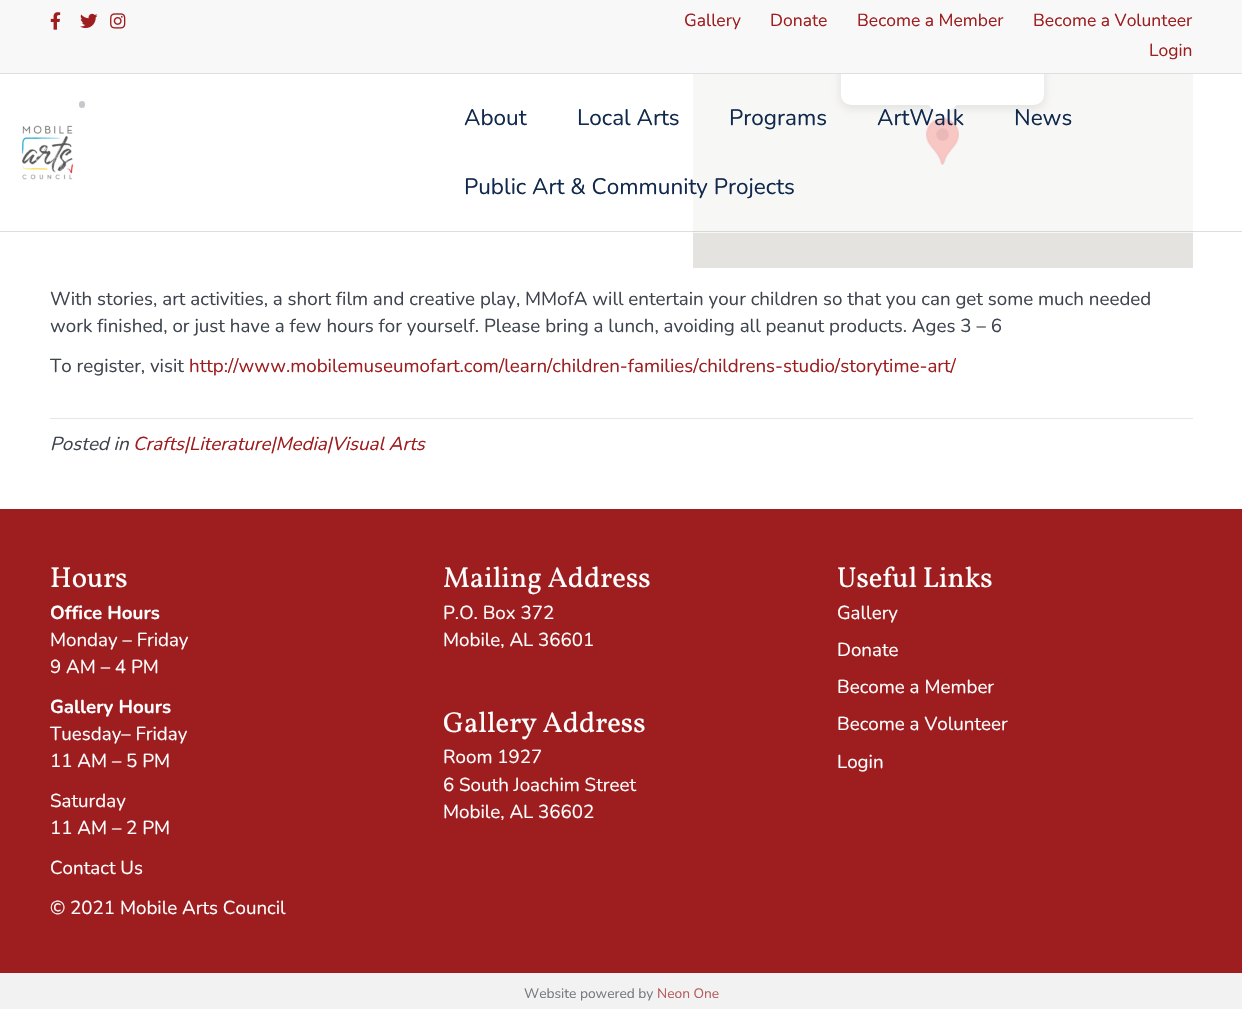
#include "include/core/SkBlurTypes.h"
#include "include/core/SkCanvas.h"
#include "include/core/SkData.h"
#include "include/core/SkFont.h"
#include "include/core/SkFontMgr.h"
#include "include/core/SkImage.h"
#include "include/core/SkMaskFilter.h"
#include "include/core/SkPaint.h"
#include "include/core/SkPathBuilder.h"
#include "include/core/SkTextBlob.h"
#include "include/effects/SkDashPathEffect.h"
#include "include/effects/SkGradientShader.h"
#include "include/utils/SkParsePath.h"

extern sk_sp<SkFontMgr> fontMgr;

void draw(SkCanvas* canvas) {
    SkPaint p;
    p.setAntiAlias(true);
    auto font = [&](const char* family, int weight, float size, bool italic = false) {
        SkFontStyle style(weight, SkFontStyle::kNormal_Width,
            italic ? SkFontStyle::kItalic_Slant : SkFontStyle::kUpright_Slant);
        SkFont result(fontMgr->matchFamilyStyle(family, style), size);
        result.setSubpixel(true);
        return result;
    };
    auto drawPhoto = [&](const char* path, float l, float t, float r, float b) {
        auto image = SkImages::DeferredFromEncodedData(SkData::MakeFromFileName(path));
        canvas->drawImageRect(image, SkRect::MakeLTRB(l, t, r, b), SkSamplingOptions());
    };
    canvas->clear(0xFFF2F2F2);
    p.setColor(0xFFFFFFFF);
    canvas->drawRect(SkRect::MakeLTRB(0, 74, 1242, 509), p);
    p.setColor(0xFFE5E3DF);
    canvas->drawRect(SkRect::MakeLTRB(693, 74, 1193, 268), p);
    drawPhoto("media/5.png", 926, 118, 959, 165);
    p.setColor(0x4D000000);
    p.setMaskFilter(SkMaskFilter::MakeBlur(kNormal_SkBlurStyle, 4.5f));
    canvas->drawRoundRect(SkRect::MakeLTRB(840, -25, 1045, 109), 11, 11, p);
    p.setMaskFilter(nullptr);
    p.setColor(0xFFFFFFFF);
    canvas->drawRoundRect(SkRect::MakeLTRB(841, -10, 1044, 105), 10, 10, p);
    p.setColor(0xFFF8F8F8);
    canvas->drawRect(SkRect::MakeLTRB(0, 0, 1242, 73), p);
    p.setColor(0xFFDFDFDF);
    canvas->drawRect(SkRect::MakeLTRB(0, 73, 1242, 74), p);
    drawPhoto("media/1.png", 50, 12, 61, 30);
    drawPhoto("media/2.png", 80, 13, 98, 29);
    drawPhoto("media/3.png", 110, 13, 126, 29);
    auto font1 = font("Nunito", 400, 17.5f);
    p.setColor(0xFF9E1E20);
    {
        const struct { const char* s; float x, y; } items[] = {
            {"Gallery", 684, 26},
            {"Donate", 770, 26},
            {"Become a Member", 857, 26},
            {"Become a Volunteer", 1033, 26},
            {"Login", 1149, 56},
        };
        for (auto [s, x, y] : items) {
            canvas->drawString(s, x, y, font1, p);
        }
    }
    p.setColor(0xFF3F454F);
    canvas->drawRoundRect(SkRect::MakeLTRB(79, 101, 85, 108), 3, 3, p);
    p.setColor(0xFFFFFFFF);
    canvas->drawPath(SkPathBuilder().moveTo(928, 104).lineTo(928, 104.5f).lineTo(942.5f, 118.5f).lineTo(957.5f, 104).close().detach(), p);
    p.setColor(0xB3FFFFFF);
    canvas->drawRect(SkRect::MakeLTRB(79, 74, 1193, 233), p);
    p.setColor(0x21000000);
    canvas->drawRect(SkRect::MakeLTRB(0, 231, 1242, 232), p);
    drawPhoto("media/4.png", 21, 125, 74, 180);
    auto font2 = font("Nunito", 400, 22.5f);
    p.setColor(0xFF10294C);
    {
        const struct { const char* s; float x, y; } items[] = {
            {"About", 464, 125},
            {"Local Arts", 577, 125},
            {"Programs", 729, 125},
            {"ArtWalk", 877, 125},
            {"News", 1014, 125},
            {"Public Art & Community Projects", 464, 194},
        };
        for (auto [s, x, y] : items) {
            canvas->drawString(s, x, y, font2, p);
        }
    }
    auto font3 = font("Nunito", 400, 18.75f);
    p.setColor(0xFF3F454F);
    {
        const struct { const char* s; float x, y; } items[] = {
            {"With stories, art activities, a short film and creative play, MMofA will entertain your children so that you can get some much needed", 50, 305},
            {"work finished, or just have a few hours for yourself. Please bring a lunch, avoiding all peanut products. Ages 3 – 6", 50, 332},
            {"To register, visit", 50, 372},
        };
        for (auto [s, x, y] : items) {
            canvas->drawString(s, x, y, font3, p);
        }
    }
    p.setColor(0xFF9E1E20);
    canvas->drawString("http://www.mobilemuseumofart.com/learn/children-families/childrens-studio/storytime-art/", 189, 372, font3, p);
    p.setColor(0xFFE6E6E6);
    canvas->drawRect(SkRect::MakeLTRB(50, 418, 1193, 419), p);
    auto font4 = font("Nunito", 400, 18.75f, true);
    p.setColor(0xFF3F454F);
    canvas->drawString("Posted in", 50, 450, font4, p);
    p.setColor(0xFF9E1E20);
    canvas->drawString("Crafts|Literature|Media|Visual Arts", 133, 450, font4, p);
    canvas->drawRect(SkRect::MakeLTRB(0, 509, 1242, 973), p);
    auto font5 = font("Vollkorn", 400, 28.75f);
    p.setColor(0xFFFFFFFF);
    canvas->drawString("Hours", 50, 587, font5, p);
    auto font6 = font("Nunito", 700, 18.75f);
    canvas->drawString("Office Hours", 50, 619, font6, p);
    canvas->drawString("Monday – Friday", 50, 646, font3, p);
    canvas->drawString("9 AM – 4 PM", 50, 673, font3, p);
    canvas->drawString("Gallery Hours", 50, 713, font6, p);
    {
        const struct { const char* s; float x, y; } items[] = {
            {"Tuesday– Friday", 50, 740},
            {"11 AM – 5 PM", 50, 767},
            {"Saturday", 50, 807},
            {"11 AM – 2 PM", 50, 834},
            {"Contact Us", 50, 874},
            {"© 2021 Mobile Arts Council", 50, 914},
        };
        for (auto [s, x, y] : items) {
            canvas->drawString(s, x, y, font3, p);
        }
    }
    canvas->drawString("Mailing Address", 443, 587, font5, p);
    canvas->drawString("P.O. Box 372", 443, 619, font3, p);
    canvas->drawString("Mobile, AL 36601", 443, 646, font3, p);
    canvas->drawString("Gallery Address", 443, 732, font5, p);
    {
        const struct { const char* s; float x, y; } items[] = {
            {"Room 1927", 443, 763},
            {"6 South Joachim Street", 443, 791},
            {"Mobile, AL 36602", 443, 818},
        };
        for (auto [s, x, y] : items) {
            canvas->drawString(s, x, y, font3, p);
        }
    }
    canvas->drawString("Useful Links", 837, 587, font5, p);
    {
        const struct { const char* s; float x, y; } items[] = {
            {"Gallery", 837, 619},
            {"Donate", 837, 656},
            {"Become a Member", 837, 693},
            {"Become a Volunteer", 837, 730},
            {"Login", 837, 768},
        };
        for (auto [s, x, y] : items) {
            canvas->drawString(s, x, y, font3, p);
        }
    }
    auto font7 = font("Nunito", 400, 13.75f);
    p.setColor(0xFF757980);
    canvas->drawString("Website powered by", 524, 998, font7, p);
    p.setColor(0xFFB75E5F);
    canvas->drawString("Neon One", 657, 998, font7, p);
}
